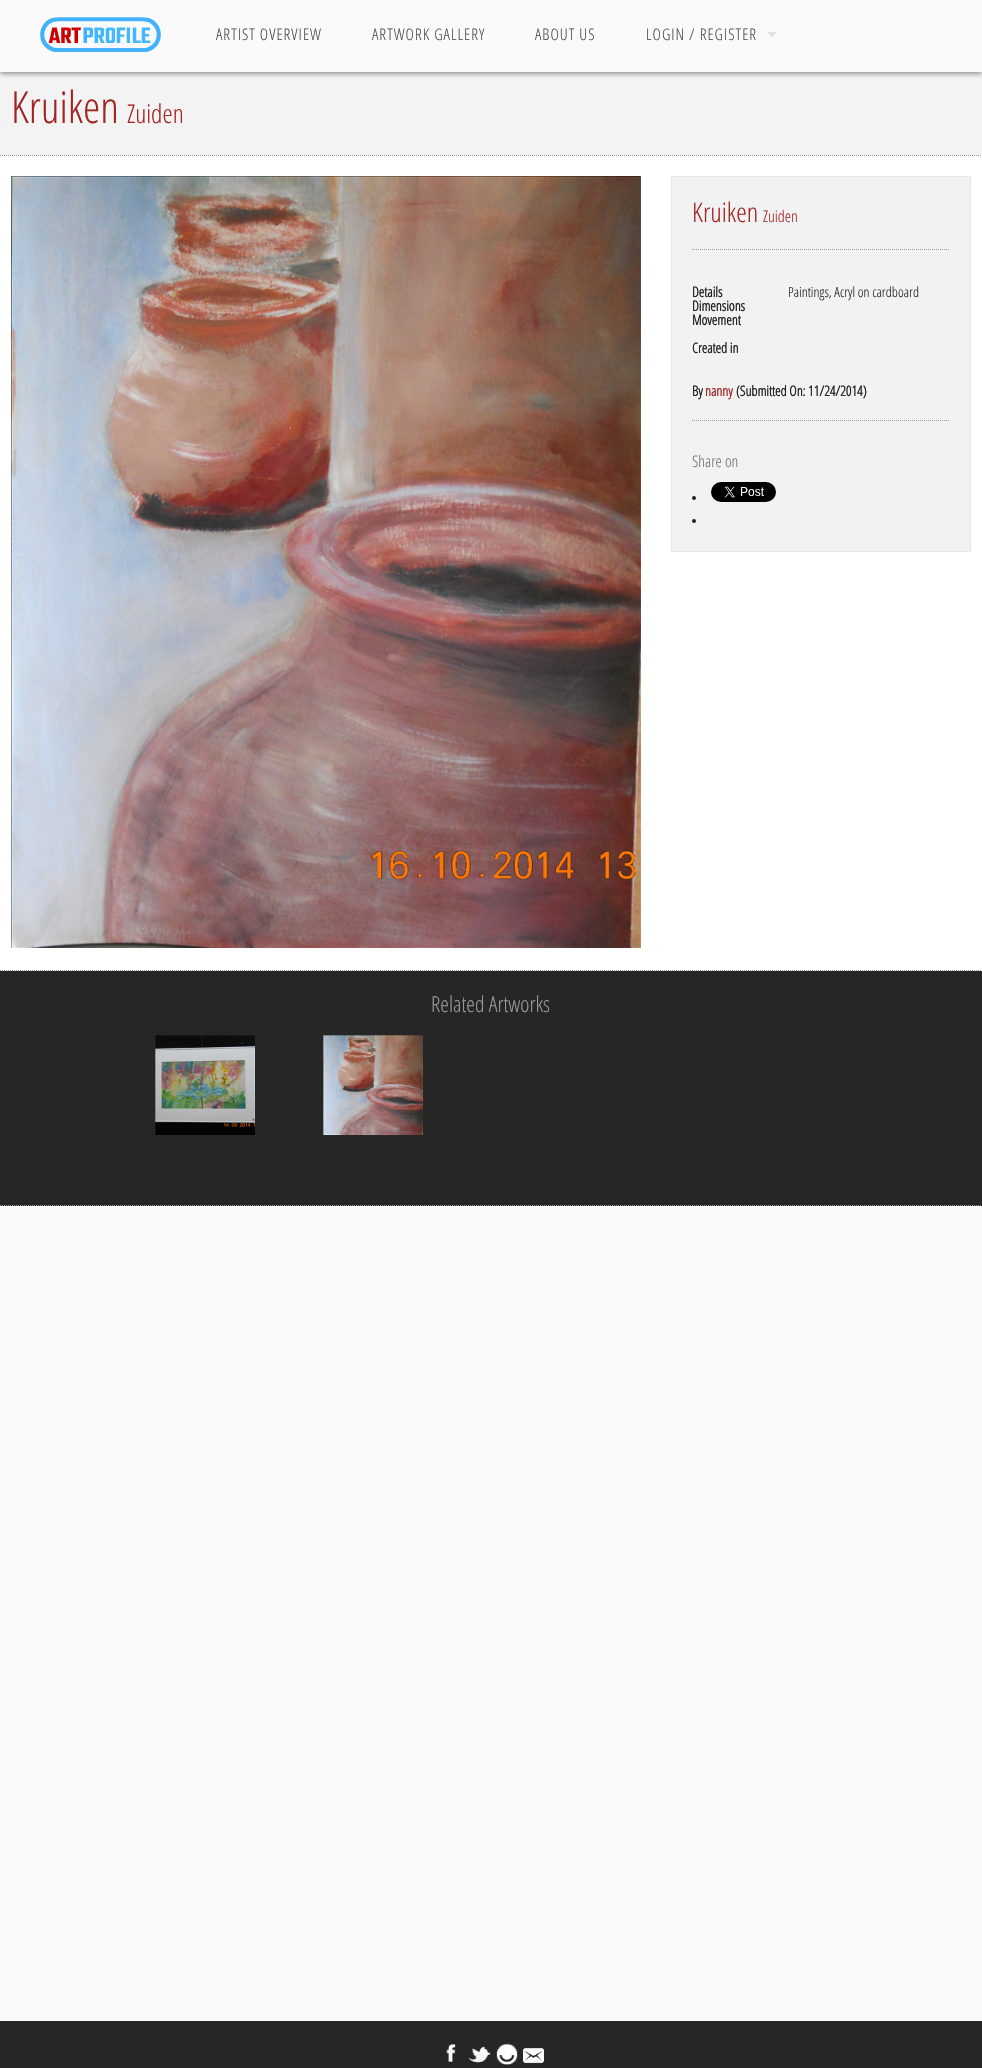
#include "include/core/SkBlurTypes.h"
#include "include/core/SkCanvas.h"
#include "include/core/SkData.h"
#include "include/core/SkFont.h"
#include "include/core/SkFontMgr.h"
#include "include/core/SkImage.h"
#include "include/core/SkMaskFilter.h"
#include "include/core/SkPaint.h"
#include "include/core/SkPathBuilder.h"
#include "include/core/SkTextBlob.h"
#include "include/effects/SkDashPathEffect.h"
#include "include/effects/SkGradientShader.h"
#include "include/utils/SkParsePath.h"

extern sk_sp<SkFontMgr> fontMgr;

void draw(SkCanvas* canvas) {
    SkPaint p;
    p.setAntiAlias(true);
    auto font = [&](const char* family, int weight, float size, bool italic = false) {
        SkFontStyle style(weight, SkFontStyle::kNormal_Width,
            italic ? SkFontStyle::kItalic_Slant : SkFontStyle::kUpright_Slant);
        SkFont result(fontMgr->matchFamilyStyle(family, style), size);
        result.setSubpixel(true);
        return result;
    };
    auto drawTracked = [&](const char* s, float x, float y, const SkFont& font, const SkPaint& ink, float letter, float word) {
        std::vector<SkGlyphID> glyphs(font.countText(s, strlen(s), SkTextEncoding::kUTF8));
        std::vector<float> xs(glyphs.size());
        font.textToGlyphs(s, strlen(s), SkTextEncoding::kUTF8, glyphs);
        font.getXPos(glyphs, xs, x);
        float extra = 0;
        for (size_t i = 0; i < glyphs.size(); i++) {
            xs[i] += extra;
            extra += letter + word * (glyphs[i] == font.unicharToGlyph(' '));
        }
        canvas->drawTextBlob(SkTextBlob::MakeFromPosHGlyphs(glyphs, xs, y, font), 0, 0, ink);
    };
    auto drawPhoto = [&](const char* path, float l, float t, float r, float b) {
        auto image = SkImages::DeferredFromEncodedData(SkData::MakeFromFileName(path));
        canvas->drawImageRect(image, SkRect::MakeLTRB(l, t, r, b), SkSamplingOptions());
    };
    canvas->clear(0xFFFAFAFA);
    p.setColor(0xFFF3F3F3);
    canvas->drawRect(SkRect::MakeLTRB(0, 72, 982, 155), p);
    canvas->save();
    canvas->clipRect(SkRect::MakeLTRB(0, 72, 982, 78));
    p.setColor(0x99221919);
    p.setMaskFilter(SkMaskFilter::MakeBlur(kNormal_SkBlurStyle, 3));
    canvas->drawRect(SkRect::MakeLTRB(0, 1, 982, 73), p);
    p.setMaskFilter(nullptr);
    canvas->restore();
    drawPhoto("media/1.png", 40, 17, 161, 52);
    auto font1 = font("Open Sans Condensed", 300, 16);
    p.setColor(0xFF4D4D4D);
    {
        const struct { const char* s; float x, y; } items[] = {
            {"ARTIST OVERVIEW", 216, 40},
            {"ARTWORK GALLERY", 372, 40},
            {"ABOUT US", 535, 40},
            {"LOGIN / REGISTER", 646, 40},
        };
        for (auto [s, x, y] : items) {
            drawTracked(s, x, y, font1, p, 1, 0);
        }
    }
    p.setColor(0xFFE0E0E0);
    canvas->drawPath(SkPathBuilder().moveTo(767, 32).lineTo(777, 32).lineTo(772, 37).close().detach(), p);
    auto font2 = font("Open Sans Condensed", 300, 44);
    p.setColor(0xFFA32323);
    canvas->drawString("Kruiken", 11, 123, font2, p);
    auto font3 = font("Open Sans Condensed", 300, 26);
    canvas->drawString("Zuiden", 127, 123, font3, p);
    p.setColor(0xFFFFFFFF);
    canvas->drawRect(SkRect::MakeLTRB(0, 155, 982, 971), p);
    p.setStyle(SkPaint::kStroke_Style);
    p.setStrokeWidth(1);
    p.setColor(0xFF999999);
    p.setPathEffect(SkDashPathEffect::Make({{1, 1}}, 0));
    canvas->drawPath(SkPathBuilder().moveTo(0, 155.5f).lineTo(982, 155.5f).detach(), p);
    p.setPathEffect(nullptr);
    p.setPathEffect(SkDashPathEffect::Make({{1, 1}}, 0));
    canvas->drawPath(SkPathBuilder().moveTo(0, 970.5f).lineTo(982, 970.5f).detach(), p);
    p.setPathEffect(nullptr);
    drawPhoto("media/2.png", 11, 176, 641, 948);
    p.setStyle(SkPaint::kFill_Style);
    p.setColor(0xFFF2F2F2);
    canvas->drawRect(SkRect::MakeLTRB(671.5f, 176.5f, 970.5f, 551.5f), p);
    p.setStyle(SkPaint::kStroke_Style);
    p.setColor(0xFFE6E6E6);
    canvas->drawRect(SkRect::MakeLTRB(671.5f, 176.5f, 970.5f, 551.5f), p);
    auto font4 = font("Open Sans Condensed", 300, 27);
    p.setStyle(SkPaint::kFill_Style);
    p.setColor(0xFFA32323);
    canvas->drawString("Kruiken", 692, 222, font4, p);
    canvas->drawString("Zuiden", 763, 222, font1, p);
    p.setStyle(SkPaint::kStroke_Style);
    p.setColor(0xFF999999);
    p.setPathEffect(SkDashPathEffect::Make({{1, 1}}, 0));
    canvas->drawPath(SkPathBuilder().moveTo(692, 249.5f).lineTo(950, 249.5f).detach(), p);
    p.setPathEffect(nullptr);
    auto font5 = font("Open Sans Condensed", 700, 14);
    p.setStyle(SkPaint::kFill_Style);
    p.setColor(0xFF222222);
    canvas->drawString("Details", 692, 297, font5, p);
    auto font6 = font("Open Sans Condensed", 300, 14);
    canvas->drawString("Paintings, Acryl on cardboard", 788, 297, font6, p);
    {
        const struct { const char* s; float x, y; } items[] = {
            {"Dimensions", 692, 311},
            {"Movement", 692, 325},
            {"Created in", 692, 353},
            {"By", 692, 396},
        };
        for (auto [s, x, y] : items) {
            canvas->drawString(s, x, y, font5, p);
        }
    }
    p.setColor(0xFFA32323);
    canvas->drawString("nanny", 705, 396, font5, p);
    p.setColor(0xFF222222);
    canvas->drawString("(Submitted On: 11/24/2014)", 736, 396, font5, p);
    p.setStyle(SkPaint::kStroke_Style);
    p.setColor(0xFF999999);
    p.setPathEffect(SkDashPathEffect::Make({{1, 1}}, 0));
    canvas->drawPath(SkPathBuilder().moveTo(692, 420.5f).lineTo(950, 420.5f).detach(), p);
    p.setPathEffect(nullptr);
    p.setStyle(SkPaint::kFill_Style);
    p.setColor(0xFF6F6F6F);
    canvas->drawString("Share on", 692, 467, font1, p);
    p.setColor(0xFF222222);
    canvas->drawCircle(694, 498, 2, p);
    drawPhoto("media/3.png", 711, 482, 776, 502);
    canvas->drawCircle(694, 521, 2, p);
    p.setColor(0xFF262626);
    canvas->drawRect(SkRect::MakeLTRB(0, 971, 982, 1206), p);
    p.setStyle(SkPaint::kStroke_Style);
    p.setColor(0xFF999999);
    p.setPathEffect(SkDashPathEffect::Make({{1, 1}}, 0));
    canvas->drawPath(SkPathBuilder().moveTo(0, 1205.5f).lineTo(982, 1205.5f).detach(), p);
    p.setPathEffect(nullptr);
    auto font7 = font("Open Sans Condensed", 300, 22);
    p.setStyle(SkPaint::kFill_Style);
    canvas->drawString("Related Artworks", 431, 1012, font7, p);
    drawPhoto("media/4.png", 155, 1035, 255, 1135);
    drawPhoto("media/5.png", 323, 1035, 423, 1135);
    p.setColor(0xFF262626);
    canvas->drawRect(SkRect::MakeLTRB(0, 2021, 982, 2068), p);
    drawPhoto("media/6.png", 446, 2044, 456, 2063);
    drawPhoto("media/7.png", 468, 2046, 491, 2064);
    drawPhoto("media/8.png", 496, 2043, 518, 2065);
    drawPhoto("media/9.png", 523, 2048, 544, 2064);
}
